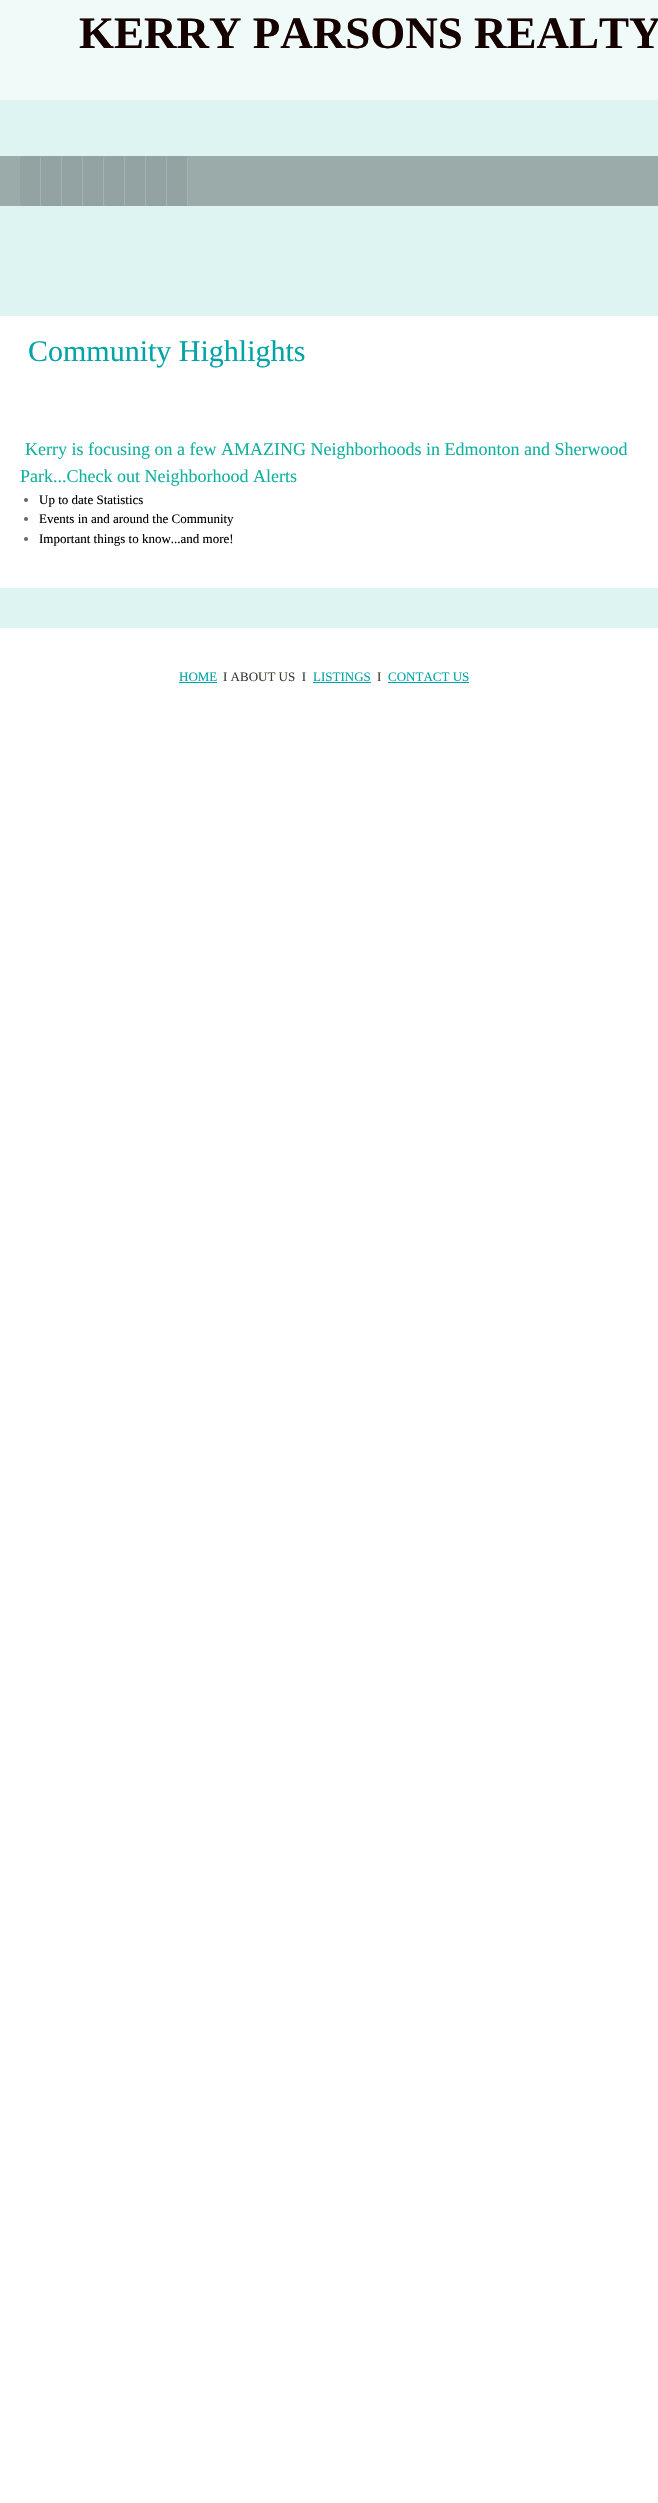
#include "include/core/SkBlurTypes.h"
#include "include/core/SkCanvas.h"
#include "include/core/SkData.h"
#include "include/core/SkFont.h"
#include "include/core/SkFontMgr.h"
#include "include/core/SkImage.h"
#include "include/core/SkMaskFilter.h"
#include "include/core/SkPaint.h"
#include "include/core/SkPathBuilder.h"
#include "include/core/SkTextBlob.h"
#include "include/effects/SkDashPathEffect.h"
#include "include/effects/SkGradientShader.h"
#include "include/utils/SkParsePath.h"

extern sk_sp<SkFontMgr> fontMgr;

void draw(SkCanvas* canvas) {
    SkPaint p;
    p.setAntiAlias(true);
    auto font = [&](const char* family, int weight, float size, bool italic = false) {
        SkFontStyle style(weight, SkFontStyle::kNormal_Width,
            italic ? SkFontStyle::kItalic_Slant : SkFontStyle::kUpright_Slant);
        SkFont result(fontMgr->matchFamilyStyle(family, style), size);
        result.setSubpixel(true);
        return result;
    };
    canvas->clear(0xFFFFFFFF);
    p.setColor(0xFFDEF4F3);
    canvas->drawRect(SkRect::MakeLTRB(0, 100, 658, 156), p);
    p.setColor(0xFFEFFAF9);
    canvas->drawRect(SkRect::MakeLTRB(0, 0, 658, 100), p);
    auto font1 = font("Liberation Serif", 700, 45);
    p.setColor(0xFF160101);
    canvas->drawString("KERRY PARSONS REALTY", 79, 48, font1, p);
    p.setColor(0xFF9BABAA);
    canvas->drawRect(SkRect::MakeLTRB(0, 156, 658, 206), p);
    p.setColor(0xFF93A2A2);
    canvas->drawRoundRect(SkRect::MakeLTRB(20, 156, 41, 206), 3, 3, p);
    p.setColor(0x33F7F7F7);
    canvas->drawRect(SkRect::MakeLTRB(40, 158, 41, 205), p);
    p.setColor(0xFF93A2A2);
    canvas->drawRoundRect(SkRect::MakeLTRB(41, 156, 62, 206), 3, 3, p);
    p.setColor(0x33F7F7F7);
    canvas->drawRect(SkRect::MakeLTRB(61, 158, 62, 205), p);
    p.setColor(0xFF93A2A2);
    canvas->drawRoundRect(SkRect::MakeLTRB(62, 156, 83, 206), 3, 3, p);
    p.setColor(0x33F7F7F7);
    canvas->drawRect(SkRect::MakeLTRB(82, 158, 83, 205), p);
    p.setColor(0xFF93A2A2);
    canvas->drawRoundRect(SkRect::MakeLTRB(83, 156, 104, 206), 3, 3, p);
    p.setColor(0x33F7F7F7);
    canvas->drawRect(SkRect::MakeLTRB(103, 158, 104, 205), p);
    p.setColor(0xFF93A2A2);
    canvas->drawRoundRect(SkRect::MakeLTRB(104, 156, 125, 206), 3, 3, p);
    p.setColor(0x33F7F7F7);
    canvas->drawRect(SkRect::MakeLTRB(124, 158, 125, 205), p);
    p.setColor(0xFF93A2A2);
    canvas->drawRoundRect(SkRect::MakeLTRB(125, 156, 146, 206), 3, 3, p);
    p.setColor(0x33F7F7F7);
    canvas->drawRect(SkRect::MakeLTRB(145, 158, 146, 205), p);
    p.setColor(0xFF93A2A2);
    canvas->drawRoundRect(SkRect::MakeLTRB(146, 156, 167, 206), 3, 3, p);
    p.setColor(0x33F7F7F7);
    canvas->drawRect(SkRect::MakeLTRB(166, 158, 167, 205), p);
    p.setColor(0xFF93A2A2);
    canvas->drawRoundRect(SkRect::MakeLTRB(167, 156, 188, 206), 3, 3, p);
    p.setColor(0x33F7F7F7);
    canvas->drawRect(SkRect::MakeLTRB(187, 158, 188, 205), p);
    p.setColor(0xFFDEF4F3);
    canvas->drawRect(SkRect::MakeLTRB(0, 206, 658, 316), p);
    auto font2 = font("Liberation Serif", 400, 30);
    p.setColor(0xFF00A4A8);
    canvas->drawString("Community Highlights", 28, 361, font2, p);
    auto font3 = font("Liberation Serif", 400, 18);
    p.setColor(0xFF11B1A0);
    canvas->drawString("Kerry is focusing on a few AMAZING Neighborhoods in Edmonton and Sherwood", 25, 455, font3, p);
    canvas->drawString("Park...Check out Neighborhood Alerts", 20, 482, font3, p);
    p.setColor(0xFF666666);
    canvas->drawCircle(26, 500, 2, p);
    auto font4 = font("Liberation Serif", 400, 13);
    p.setColor(0xFF000000);
    canvas->drawString("Up to date Statistics", 39, 504, font4, p);
    p.setColor(0xFF666666);
    canvas->drawCircle(26, 519, 2, p);
    p.setColor(0xFF000000);
    canvas->drawString("Events in and around the Community", 39, 523, font4, p);
    p.setColor(0xFF666666);
    canvas->drawCircle(26, 539, 2, p);
    p.setColor(0xFF000000);
    canvas->drawString("Important things to know...and more!", 39, 543, font4, p);
    p.setColor(0xFFDEF4F3);
    canvas->drawRect(SkRect::MakeLTRB(0, 588, 658, 628), p);
    p.setColor(0xFF00A4A8);
    canvas->drawString("HOME", 179, 681, font4, p);
    canvas->drawRect(SkRect::MakeLTRB(179, 682, 217, 683), p);
    p.setColor(0xFF3E3C36);
    canvas->drawString("I ABOUT US  I", 223, 681, font4, p);
    p.setColor(0xFF00A4A8);
    canvas->drawString("LISTINGS", 313, 681, font4, p);
    canvas->drawRect(SkRect::MakeLTRB(313, 682, 371, 683), p);
    p.setColor(0xFF3E3C36);
    canvas->drawString("I", 377, 681, font4, p);
    p.setColor(0xFF00A4A8);
    canvas->drawString("CONTACT US", 388, 681, font4, p);
    canvas->drawRect(SkRect::MakeLTRB(388, 682, 469, 683), p);
}
